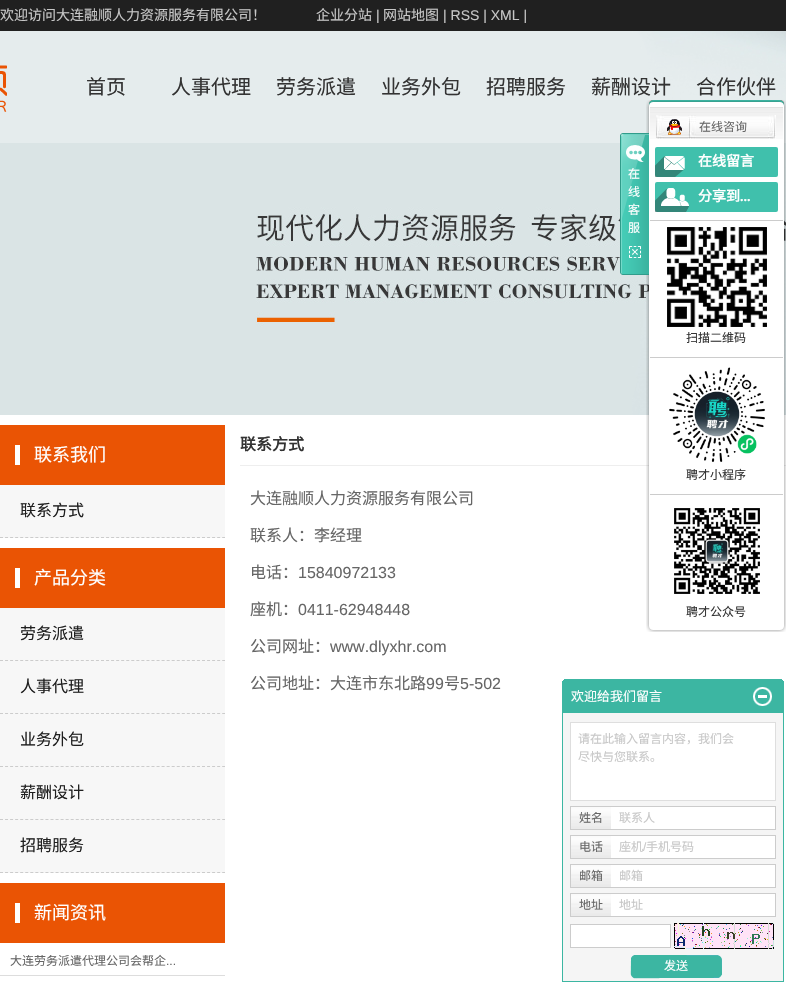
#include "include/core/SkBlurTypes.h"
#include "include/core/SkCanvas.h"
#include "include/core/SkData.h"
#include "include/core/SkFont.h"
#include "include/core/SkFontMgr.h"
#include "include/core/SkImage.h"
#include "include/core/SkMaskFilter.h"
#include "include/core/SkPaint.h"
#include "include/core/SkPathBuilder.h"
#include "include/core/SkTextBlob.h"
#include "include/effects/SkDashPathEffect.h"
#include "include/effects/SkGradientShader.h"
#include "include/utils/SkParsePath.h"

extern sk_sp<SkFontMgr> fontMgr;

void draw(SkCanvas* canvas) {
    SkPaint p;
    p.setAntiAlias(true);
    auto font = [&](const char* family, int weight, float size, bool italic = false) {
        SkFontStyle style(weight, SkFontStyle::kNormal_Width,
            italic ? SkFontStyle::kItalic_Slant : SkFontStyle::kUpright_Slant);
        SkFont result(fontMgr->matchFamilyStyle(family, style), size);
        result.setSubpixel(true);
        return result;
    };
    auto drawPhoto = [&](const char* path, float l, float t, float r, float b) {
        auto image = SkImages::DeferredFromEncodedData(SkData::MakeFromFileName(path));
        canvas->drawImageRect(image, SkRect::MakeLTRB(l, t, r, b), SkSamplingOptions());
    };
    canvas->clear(0xFFFFFFFF);
    p.setColor(0xFF202020);
    canvas->drawRect(SkRect::MakeLTRB(0, 0, 786, 31), p);
    auto font1 = font("Noto Sans CJK SC", 400, 14);
    p.setColor(0xFFC7C7C7);
    canvas->drawString("欢迎访问大连融顺人力资源服务有限公司！", 0, 20, font1, p);
    canvas->drawString("企业分站", 316, 20, font1, p);
    auto font2 = font("Liberation Sans", 400, 14);
    canvas->drawString("|", 376, 20, font2, p);
    canvas->drawString("网站地图", 383, 20, font1, p);
    canvas->drawString("| RSS | XML |", 443, 20, font2, p);
    drawPhoto("media/1.png", 0, 31, 786, 415);
    p.setColor(0x4DFFFFFF);
    canvas->drawRect(SkRect::MakeLTRB(0, 31, 786, 143), p);
    drawPhoto("media/2.png", 0, 65, 7, 112);
    auto font3 = font("Noto Sans CJK SC", 400, 20);
    p.setColor(0xFF333333);
    {
        const struct { const char* s; float x, y; } items[] = {
            {"首页", 86, 94},
            {"人事代理", 171, 94},
            {"劳务派遣", 276, 94},
            {"业务外包", 381, 94},
            {"招聘服务", 486, 94},
            {"薪酬设计", 591, 94},
            {"合作伙伴", 696, 94},
        };
        for (auto [s, x, y] : items) {
            canvas->drawString(s, x, y, font3, p);
        }
    }
    p.setColor(0xFFEEEEEE);
    canvas->drawRect(SkRect::MakeLTRB(240, 465, 786, 466), p);
    drawPhoto("media/6.png", 646, 107, 786, 624);
    drawPhoto("media/3.png", 620, 133, 649, 275);
    auto font4 = font("Noto Sans CJK SC", 400, 12);
    p.setColor(0xFFFFFFFF);
    {
        const struct { const char* s; float x, y; } items[] = {
            {"在", 628, 178},
            {"线", 628, 196},
            {"客", 628, 214},
            {"服", 628, 232},
        };
        for (auto [s, x, y] : items) {
            canvas->drawString(s, x, y, font4, p);
        }
    }
    drawPhoto("media/4.png", 629, 246, 641, 258);
    drawPhoto("media/5.png", 646, 100, 786, 107);
    drawPhoto("media/7.png", 650, 107, 783, 139);
    drawPhoto("media/8.png", 656, 115, 776, 139);
    drawPhoto("media/9.png", 667, 119, 682, 135);
    p.setColor(0xFF666666);
    canvas->drawString("在线咨询", 699, 131, font4, p);
    p.setColor(0xFF40C0AC);
    canvas->drawRoundRect(SkRect::MakeLTRB(655, 147, 778, 177), 2, 2, p);
    drawPhoto("media/10.png", 655, 156, 685, 177);
    auto font5 = font("Noto Sans CJK SC", 700, 14);
    p.setColor(0xFFFFFFFF);
    canvas->drawString("在线留言", 698, 166, font5, p);
    p.setColor(0xFF40C0AC);
    canvas->drawRoundRect(SkRect::MakeLTRB(655, 182, 778, 212), 2, 2, p);
    drawPhoto("media/11.png", 655, 188, 689, 212);
    p.setColor(0xFFFFFFFF);
    canvas->drawString("分享到", 698, 201, font5, p);
    auto font6 = font("Liberation Serif", 700, 14);
    canvas->drawString("...", 740, 201, font6, p);
    p.setColor(0xFFCCCCCC);
    canvas->drawRect(SkRect::MakeLTRB(650, 220, 783, 221), p);
    drawPhoto("media/12.png", 667, 227, 767, 327);
    p.setColor(0xFF333333);
    canvas->drawString("扫描二维码", 686, 342, font4, p);
    p.setColor(0xFFCCCCCC);
    canvas->drawRect(SkRect::MakeLTRB(650, 357, 783, 358), p);
    drawPhoto("media/13.png", 669, 367, 765, 462);
    p.setColor(0xFF333333);
    canvas->drawString("聘才小程序", 686, 479, font4, p);
    p.setColor(0xFFCCCCCC);
    canvas->drawRect(SkRect::MakeLTRB(650, 494, 783, 495), p);
    drawPhoto("media/14.png", 674, 508, 760, 594);
    p.setColor(0xFF333333);
    canvas->drawString("聘才公众号", 686, 616, font4, p);
    drawPhoto("media/15.png", 646, 624, 786, 632);
    p.setColor(0xFFEA5404);
    canvas->drawRect(SkRect::MakeLTRB(0, 425, 225, 485), p);
    p.setColor(0xFFFFFFFF);
    canvas->drawRect(SkRect::MakeLTRB(15, 445, 20, 465), p);
    auto font7 = font("Noto Sans CJK SC", 400, 18);
    canvas->drawString("联系我们", 34, 461, font7, p);
    p.setColor(0xFFF7F7F7);
    canvas->drawRect(SkRect::MakeLTRB(0, 485, 225, 538), p);
    p.setStyle(SkPaint::kStroke_Style);
    p.setStrokeWidth(1);
    p.setColor(0xFFCCCCCC);
    p.setPathEffect(SkDashPathEffect::Make({{3, 2.05f}}, 0));
    canvas->drawPath(SkPathBuilder().moveTo(0, 537.5f).lineTo(225, 537.5f).detach(), p);
    p.setPathEffect(nullptr);
    auto font8 = font("Noto Sans CJK SC", 400, 16);
    p.setStyle(SkPaint::kFill_Style);
    p.setColor(0xFF1F1F1F);
    canvas->drawString("联系方式", 20, 516, font8, p);
    p.setColor(0xFFEA5404);
    canvas->drawRect(SkRect::MakeLTRB(0, 548, 225, 608), p);
    p.setColor(0xFFFFFFFF);
    canvas->drawRect(SkRect::MakeLTRB(15, 568, 20, 588), p);
    canvas->drawString("产品分类", 34, 584, font7, p);
    p.setColor(0xFFF7F7F7);
    canvas->drawRect(SkRect::MakeLTRB(0, 608, 225, 873), p);
    p.setStyle(SkPaint::kStroke_Style);
    p.setColor(0xFFCCCCCC);
    p.setPathEffect(SkDashPathEffect::Make({{3, 2.05f}}, 0));
    canvas->drawPath(SkPathBuilder().moveTo(0, 660.5f).lineTo(225, 660.5f).detach(), p);
    p.setPathEffect(nullptr);
    p.setStyle(SkPaint::kFill_Style);
    p.setColor(0xFF1F1F1F);
    canvas->drawString("劳务派遣", 20, 639, font8, p);
    p.setStyle(SkPaint::kStroke_Style);
    p.setColor(0xFFCCCCCC);
    p.setPathEffect(SkDashPathEffect::Make({{3, 2.05f}}, 0));
    canvas->drawPath(SkPathBuilder().moveTo(0, 713.5f).lineTo(225, 713.5f).detach(), p);
    p.setPathEffect(nullptr);
    p.setStyle(SkPaint::kFill_Style);
    p.setColor(0xFF1F1F1F);
    canvas->drawString("人事代理", 20, 692, font8, p);
    p.setStyle(SkPaint::kStroke_Style);
    p.setColor(0xFFCCCCCC);
    p.setPathEffect(SkDashPathEffect::Make({{3, 2.05f}}, 0));
    canvas->drawPath(SkPathBuilder().moveTo(0, 766.5f).lineTo(225, 766.5f).detach(), p);
    p.setPathEffect(nullptr);
    p.setStyle(SkPaint::kFill_Style);
    p.setColor(0xFF1F1F1F);
    canvas->drawString("业务外包", 20, 745, font8, p);
    p.setStyle(SkPaint::kStroke_Style);
    p.setColor(0xFFCCCCCC);
    p.setPathEffect(SkDashPathEffect::Make({{3, 2.05f}}, 0));
    canvas->drawPath(SkPathBuilder().moveTo(0, 819.5f).lineTo(225, 819.5f).detach(), p);
    p.setPathEffect(nullptr);
    p.setStyle(SkPaint::kFill_Style);
    p.setColor(0xFF1F1F1F);
    canvas->drawString("薪酬设计", 20, 798, font8, p);
    p.setStyle(SkPaint::kStroke_Style);
    p.setColor(0xFFCCCCCC);
    p.setPathEffect(SkDashPathEffect::Make({{3, 2.05f}}, 0));
    canvas->drawPath(SkPathBuilder().moveTo(0, 872.5f).lineTo(225, 872.5f).detach(), p);
    p.setPathEffect(nullptr);
    p.setStyle(SkPaint::kFill_Style);
    p.setColor(0xFF1F1F1F);
    canvas->drawString("招聘服务", 20, 851, font8, p);
    p.setColor(0xFFEA5404);
    canvas->drawRect(SkRect::MakeLTRB(0, 883, 225, 943), p);
    p.setColor(0xFFFFFFFF);
    canvas->drawRect(SkRect::MakeLTRB(15, 903, 20, 923), p);
    canvas->drawString("新闻资讯", 34, 919, font7, p);
    p.setColor(0xFFDDDDDD);
    canvas->drawRect(SkRect::MakeLTRB(0, 975, 225, 976), p);
    p.setColor(0xFF666666);
    canvas->drawString("大连劳务派遣代理公司会帮企", 10, 965, font4, p);
    auto font9 = font("Liberation Sans", 400, 12);
    canvas->drawString("...", 166, 965, font9, p);
    auto font10 = font("Noto Sans CJK SC", 700, 16);
    p.setColor(0xFF333333);
    canvas->drawString("联系方式", 240, 450, font10, p);
    p.setColor(0xFF666666);
    {
        const struct { const char* s; float x, y; } items[] = {
            {"大连融顺人力资源服务有限公司", 250, 504},
            {"联系人：李经理", 250, 541},
            {"电话：", 250, 578},
        };
        for (auto [s, x, y] : items) {
            canvas->drawString(s, x, y, font8, p);
        }
    }
    auto font11 = font("Liberation Sans", 400, 16);
    canvas->drawString("15840972133", 298, 578, font11, p);
    canvas->drawString("座机：", 250, 615, font8, p);
    canvas->drawString("0411-62948448", 298, 615, font11, p);
    canvas->drawString("公司网址：", 250, 652, font8, p);
    canvas->drawString("www.dlyxhr.com", 330, 652, font11, p);
    canvas->drawString("公司地址：大连市东北路", 250, 689, font8, p);
    canvas->drawString("99", 426, 689, font11, p);
    canvas->drawString("号", 444, 689, font8, p);
    canvas->drawString("5-502", 460, 689, font11, p);
    {
        const struct { float l, t, r, b; SkColor color; } items[] = {
            {564, 679, 782, 680, 0xFF3CB6A2},
            {563, 680, 783, 681, 0xFF3CB6A2},
            {562, 681, 784, 712, 0xFF3CB6A2},
        };
        for (auto [l, t, r, b, color] : items) {
            p.setColor(color);
            canvas->drawRect(SkRect::MakeLTRB(l, t, r, b), p);
        }
    }
    auto font12 = font("Noto Sans CJK SC", 400, 13);
    p.setColor(0xFFFFFFFF);
    canvas->drawString("欢迎给我们留言", 571, 701, font12, p);
    drawPhoto("media/16.png", 753, 687, 772, 706);
    p.setColor(0xFFF5F5F5);
    canvas->drawRect(SkRect::MakeLTRB(562.5f, 712.5f, 783.5f, 981.5f), p);
    p.setStyle(SkPaint::kStroke_Style);
    p.setColor(0xFF3CB6A2);
    canvas->drawRect(SkRect::MakeLTRB(562.5f, 712.5f, 783.5f, 981.5f), p);
    p.setStyle(SkPaint::kFill_Style);
    p.setColor(0xFFFFFFFF);
    canvas->drawRect(SkRect::MakeLTRB(570.5f, 722.5f, 775.5f, 800.5f), p);
    p.setStyle(SkPaint::kStroke_Style);
    p.setColor(0xFFDEDEDE);
    canvas->drawRect(SkRect::MakeLTRB(570.5f, 722.5f, 775.5f, 800.5f), p);
    p.setStyle(SkPaint::kFill_Style);
    p.setColor(0xFFC7C7C7);
    canvas->drawString("请在此输入留言内容，我们会", 578, 743, font4, p);
    canvas->drawString("尽快与您联系。", 578, 761, font4, p);
    p.setColor(0xFFFFFFFF);
    canvas->drawRect(SkRect::MakeLTRB(611, 807, 775, 829), p);
    p.setStyle(SkPaint::kStroke_Style);
    p.setColor(0xFFCCCCCC);
    canvas->drawRect(SkRect::MakeLTRB(570.5f, 806.5f, 775.5f, 829.5f), p);
    drawPhoto("media/17.png", 571, 807, 611, 829);
    p.setStyle(SkPaint::kFill_Style);
    p.setColor(0xFF666666);
    canvas->drawString("姓名", 579, 822, font4, p);
    p.setColor(0xFFC7C7C7);
    canvas->drawString("联系人", 619, 822, font4, p);
    p.setColor(0xFFFFFFFF);
    canvas->drawRect(SkRect::MakeLTRB(611, 836, 775, 858), p);
    p.setStyle(SkPaint::kStroke_Style);
    p.setColor(0xFFCCCCCC);
    canvas->drawRect(SkRect::MakeLTRB(570.5f, 835.5f, 775.5f, 858.5f), p);
    drawPhoto("media/17.png", 571, 836, 611, 858);
    p.setStyle(SkPaint::kFill_Style);
    p.setColor(0xFF666666);
    canvas->drawString("电话", 579, 851, font4, p);
    p.setColor(0xFFC7C7C7);
    canvas->drawString("座机", 619, 851, font4, p);
    canvas->drawString("/", 643, 851, font9, p);
    canvas->drawString("手机号码", 646, 851, font4, p);
    p.setColor(0xFFFFFFFF);
    canvas->drawRect(SkRect::MakeLTRB(611, 865, 775, 887), p);
    p.setStyle(SkPaint::kStroke_Style);
    p.setColor(0xFFCCCCCC);
    canvas->drawRect(SkRect::MakeLTRB(570.5f, 864.5f, 775.5f, 887.5f), p);
    drawPhoto("media/17.png", 571, 865, 611, 887);
    p.setStyle(SkPaint::kFill_Style);
    p.setColor(0xFF666666);
    canvas->drawString("邮箱", 579, 880, font4, p);
    p.setColor(0xFFC7C7C7);
    canvas->drawString("邮箱", 619, 880, font4, p);
    p.setColor(0xFFFFFFFF);
    canvas->drawRect(SkRect::MakeLTRB(611, 894, 775, 916), p);
    p.setStyle(SkPaint::kStroke_Style);
    p.setColor(0xFFCCCCCC);
    canvas->drawRect(SkRect::MakeLTRB(570.5f, 893.5f, 775.5f, 916.5f), p);
    drawPhoto("media/17.png", 571, 894, 611, 916);
    p.setStyle(SkPaint::kFill_Style);
    p.setColor(0xFF666666);
    canvas->drawString("地址", 579, 909, font4, p);
    p.setColor(0xFFC7C7C7);
    canvas->drawString("地址", 619, 909, font4, p);
    p.setColor(0xFFFFFFFF);
    canvas->drawRect(SkRect::MakeLTRB(570.5f, 924.5f, 670.5f, 947.5f), p);
    p.setStyle(SkPaint::kStroke_Style);
    p.setColor(0xFFCCCCCC);
    canvas->drawRect(SkRect::MakeLTRB(570.5f, 924.5f, 670.5f, 947.5f), p);
    drawPhoto("media/18.png", 674, 923, 774, 949);
    drawPhoto("media/19.png", 630, 955, 722, 979);
    p.setStyle(SkPaint::kFill_Style);
    p.setColor(0xFFFFFFFF);
    canvas->drawString("发送", 664, 970, font4, p);
}
